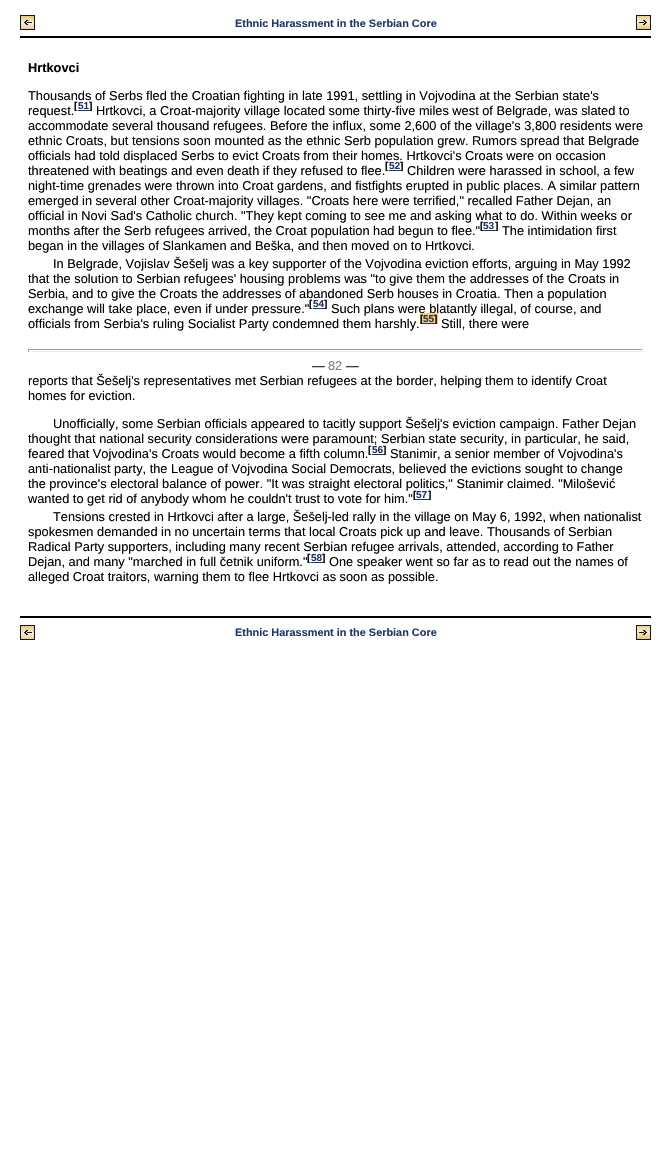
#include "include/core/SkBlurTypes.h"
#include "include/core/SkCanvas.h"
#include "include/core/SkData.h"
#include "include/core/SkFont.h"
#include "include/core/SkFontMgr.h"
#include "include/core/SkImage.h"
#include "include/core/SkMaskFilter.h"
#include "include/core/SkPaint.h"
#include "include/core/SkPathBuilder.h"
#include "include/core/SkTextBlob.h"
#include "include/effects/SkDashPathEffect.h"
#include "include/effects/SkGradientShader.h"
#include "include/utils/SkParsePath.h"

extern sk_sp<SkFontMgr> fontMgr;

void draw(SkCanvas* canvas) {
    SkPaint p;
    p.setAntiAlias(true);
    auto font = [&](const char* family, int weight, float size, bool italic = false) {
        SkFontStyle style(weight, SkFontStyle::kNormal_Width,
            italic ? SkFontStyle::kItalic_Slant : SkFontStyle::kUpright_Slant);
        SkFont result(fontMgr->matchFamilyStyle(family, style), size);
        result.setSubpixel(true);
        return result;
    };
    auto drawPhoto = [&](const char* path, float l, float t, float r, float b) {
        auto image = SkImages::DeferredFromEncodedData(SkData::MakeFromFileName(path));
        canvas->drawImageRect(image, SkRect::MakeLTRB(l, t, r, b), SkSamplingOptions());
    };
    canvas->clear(0xFFFFFFFF);
    drawPhoto("media/1.png", 20, 15, 35, 30);
    auto font1 = font("Liberation Sans", 700, 10.9f);
    p.setColor(0xFF1C376E);
    canvas->drawString("Ethnic Harassment in the Serbian Core", 235, 27, font1, p);
    drawPhoto("media/2.png", 636, 15, 651, 30);
    p.setColor(0xFF000000);
    canvas->drawRect(SkRect::MakeLTRB(20, 36, 651, 38), p);
    auto font2 = font("Liberation Sans", 700, 12.8f);
    canvas->drawString("Hrtkovci", 28, 72, font2, p);
    auto font3 = font("Liberation Sans", 400, 12.8f);
    canvas->drawString("Thousands of Serbs fled the Croatian fighting in late 1991, settling in Vojvodina at the Serbian state's", 28, 100, font3, p);
    canvas->drawString("request.", 28, 115, font3, p);
    auto font4 = font("Liberation Sans", 700, 10);
    canvas->drawString("[", 74, 109, font4, p);
    p.setColor(0xFF1C376E);
    canvas->drawRect(SkRect::MakeLTRB(78, 110, 89, 111), p);
    canvas->drawString("51", 78, 109, font4, p);
    p.setColor(0xFF000000);
    canvas->drawString("]", 89, 109, font4, p);
    {
        const struct { const char* s; float x, y; } items[] = {
            {"Hrtkovci, a Croat-majority village located some thirty-five miles west of Belgrade, was slated to", 96, 115},
            {"accommodate several thousand refugees. Before the influx, some 2,600 of the village's 3,800 residents were", 28, 130},
            {"ethnic Croats, but tensions soon mounted as the ethnic Serb population grew. Rumors spread that Belgrade", 28, 145},
            {"officials had told displaced Serbs to evict Croats from their homes. Hrtkovci's Croats were on occasion", 28, 160},
            {"threatened with beatings and even death if they refused to flee.", 28, 175},
        };
        for (auto [s, x, y] : items) {
            canvas->drawString(s, x, y, font3, p);
        }
    }
    canvas->drawString("[", 385, 169, font4, p);
    p.setColor(0xFF1C376E);
    canvas->drawRect(SkRect::MakeLTRB(389, 170, 400, 171), p);
    canvas->drawString("52", 389, 169, font4, p);
    p.setColor(0xFF000000);
    canvas->drawString("]", 400, 169, font4, p);
    {
        const struct { const char* s; float x, y; } items[] = {
            {"Children were harassed in school, a few", 407, 175},
            {"night-time grenades were thrown into Croat gardens, and fistfights erupted in public places. A similar pattern", 28, 190},
            {"emerged in several other Croat-majority villages. \"Croats here were terrified,\" recalled Father Dejan, an", 28, 205},
            {"official in Novi Sad's Catholic church. \"They kept coming to see me and asking what to do. Within weeks or", 28, 220},
            {"months after the Serb refugees arrived, the Croat population had begun to flee.\"", 28, 235},
        };
        for (auto [s, x, y] : items) {
            canvas->drawString(s, x, y, font3, p);
        }
    }
    canvas->drawString("[", 480, 229, font4, p);
    p.setColor(0xFF1C376E);
    canvas->drawRect(SkRect::MakeLTRB(483, 230, 495, 231), p);
    canvas->drawString("53", 483, 229, font4, p);
    p.setColor(0xFF000000);
    canvas->drawString("]", 495, 229, font4, p);
    {
        const struct { const char* s; float x, y; } items[] = {
            {"The intimidation first", 502, 235},
            {"began in the villages of Slankamen and Beška, and then moved on to Hrtkovci.", 28, 250},
            {"In Belgrade, Vojislav Šešelj was a key supporter of the Vojvodina eviction efforts, arguing in May 1992", 53, 268},
            {"that the solution to Serbian refugees' housing problems was \"to give them the addresses of the Croats in", 28, 283},
            {"Serbia, and to give the Croats the addresses of abandoned Serb houses in Croatia. Then a population", 28, 298},
            {"exchange will take place, even if under pressure.\"", 28, 313},
        };
        for (auto [s, x, y] : items) {
            canvas->drawString(s, x, y, font3, p);
        }
    }
    canvas->drawString("[", 309, 307, font4, p);
    p.setColor(0xFF1C376E);
    canvas->drawRect(SkRect::MakeLTRB(313, 308, 324, 309), p);
    canvas->drawString("54", 313, 307, font4, p);
    p.setColor(0xFF000000);
    canvas->drawString("]", 324, 307, font4, p);
    canvas->drawString("Such plans were blatantly illegal, of course, and", 331, 313, font3, p);
    canvas->drawString("officials from Serbia's ruling Socialist Party condemned them harshly.", 28, 328, font3, p);
    p.setColor(0xFFFFCC66);
    canvas->drawRect(SkRect::MakeLTRB(420, 313, 423, 324), p);
    p.setColor(0xFF000000);
    canvas->drawString("[", 420, 322, font4, p);
    {
        const struct { float l, t, r, b; SkColor color; } items[] = {
            {423, 323, 434, 324, 0xFF1C376E},
            {423, 313, 434, 323, 0xFFFFCC66},
            {434, 313, 438, 324, 0xFFFFCC66},
        };
        for (auto [l, t, r, b, color] : items) {
            p.setColor(color);
            canvas->drawRect(SkRect::MakeLTRB(l, t, r, b), p);
        }
    }
    p.setColor(0xFF1C376E);
    canvas->drawString("55", 423, 322, font4, p);
    p.setColor(0xFF000000);
    canvas->drawString("]", 434, 322, font4, p);
    canvas->drawString("Still, there were", 441, 328, font3, p);
    {
        const struct { float l, t, r, b; SkColor color; } items[] = {
            {28, 349, 643, 350, 0xFF9F9F9F},
            {642, 349, 643, 352, 0xFFEEEEEE},
            {28, 351, 643, 352, 0xFFEEEEEE},
            {28, 349, 29, 352, 0xFF9F9F9F},
        };
        for (auto [l, t, r, b, color] : items) {
            p.setColor(color);
            canvas->drawRect(SkRect::MakeLTRB(l, t, r, b), p);
        }
    }
    p.setColor(0xFF000000);
    canvas->drawString("―", 312, 370, font3, p);
    p.setColor(0xFF808080);
    canvas->drawString("82", 328, 370, font3, p);
    p.setColor(0xFF000000);
    {
        const struct { const char* s; float x, y; } items[] = {
            {"―", 346, 370},
            {"reports that Šešelj's representatives met Serbian refugees at the border, helping them to identify Croat", 28, 385},
            {"homes for eviction.", 28, 400},
            {"Unofficially, some Serbian officials appeared to tacitly support Šešelj's eviction campaign. Father Dejan", 53, 428},
            {"thought that national security considerations were paramount; Serbian state security, in particular, he said,", 28, 443},
            {"feared that Vojvodina's Croats would become a fifth column.", 28, 458},
        };
        for (auto [s, x, y] : items) {
            canvas->drawString(s, x, y, font3, p);
        }
    }
    canvas->drawString("[", 368, 453, font4, p);
    p.setColor(0xFF1C376E);
    canvas->drawRect(SkRect::MakeLTRB(372, 454, 383, 455), p);
    canvas->drawString("56", 372, 453, font4, p);
    p.setColor(0xFF000000);
    canvas->drawString("]", 383, 453, font4, p);
    {
        const struct { const char* s; float x, y; } items[] = {
            {"Stanimir, a senior member of Vojvodina's", 390, 458},
            {"anti-nationalist party, the League of Vojvodina Social Democrats, believed the evictions sought to change", 28, 473},
            {"the province's electoral balance of power. \"It was straight electoral politics,\" Stanimir claimed. \"Milošević", 28, 488},
            {"wanted to get rid of anybody whom he couldn't trust to vote for him.\"", 28, 503},
        };
        for (auto [s, x, y] : items) {
            canvas->drawString(s, x, y, font3, p);
        }
    }
    canvas->drawString("[", 413, 498, font4, p);
    p.setColor(0xFF1C376E);
    canvas->drawRect(SkRect::MakeLTRB(416, 499, 428, 500), p);
    canvas->drawString("57", 416, 498, font4, p);
    p.setColor(0xFF000000);
    canvas->drawString("]", 428, 498, font4, p);
    {
        const struct { const char* s; float x, y; } items[] = {
            {"Tensions crested in Hrtkovci after a large, Šešelj-led rally in the village on May 6, 1992, when nationalist", 53, 521},
            {"spokesmen demanded in no uncertain terms that local Croats pick up and leave. Thousands of Serbian", 28, 536},
            {"Radical Party supporters, including many recent Serbian refugee arrivals, attended, according to Father", 28, 551},
            {"Dejan, and many \"marched in full četnik uniform.\"", 28, 566},
        };
        for (auto [s, x, y] : items) {
            canvas->drawString(s, x, y, font3, p);
        }
    }
    canvas->drawString("[", 307, 561, font4, p);
    p.setColor(0xFF1C376E);
    canvas->drawRect(SkRect::MakeLTRB(311, 562, 322, 563), p);
    canvas->drawString("58", 311, 561, font4, p);
    p.setColor(0xFF000000);
    canvas->drawString("]", 322, 561, font4, p);
    canvas->drawString("One speaker went so far as to read out the names of", 329, 566, font3, p);
    canvas->drawString("alleged Croat traitors, warning them to flee Hrtkovci as soon as possible.", 28, 581, font3, p);
    canvas->drawRect(SkRect::MakeLTRB(20, 616, 651, 618), p);
    drawPhoto("media/1.png", 20, 625, 35, 640);
    p.setColor(0xFF1C376E);
    canvas->drawString("Ethnic Harassment in the Serbian Core", 235, 636, font1, p);
    drawPhoto("media/2.png", 636, 625, 651, 640);
}
